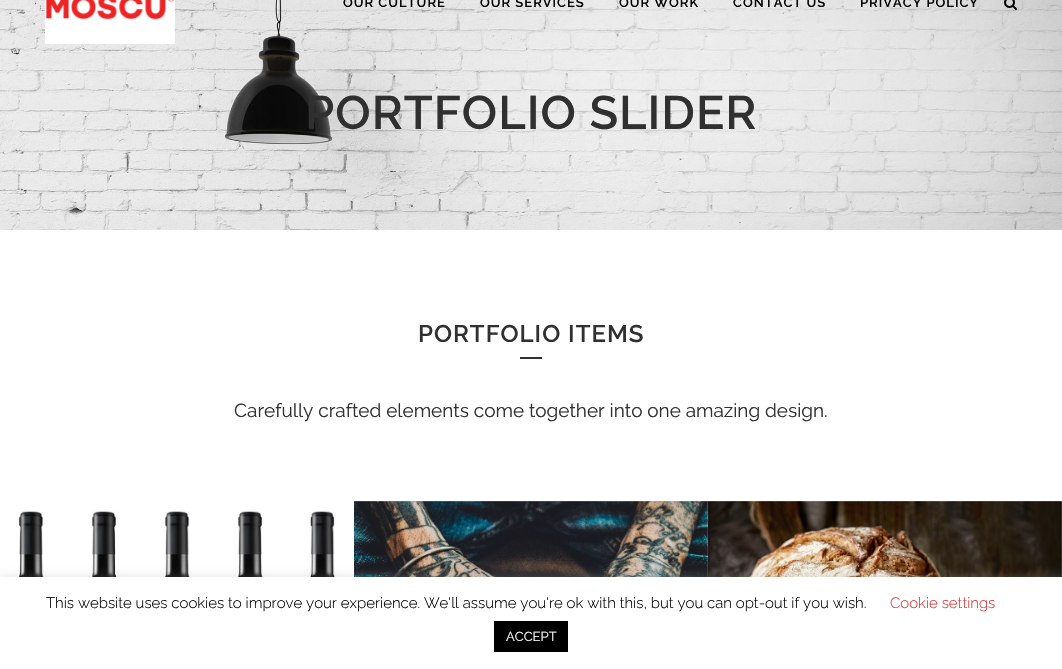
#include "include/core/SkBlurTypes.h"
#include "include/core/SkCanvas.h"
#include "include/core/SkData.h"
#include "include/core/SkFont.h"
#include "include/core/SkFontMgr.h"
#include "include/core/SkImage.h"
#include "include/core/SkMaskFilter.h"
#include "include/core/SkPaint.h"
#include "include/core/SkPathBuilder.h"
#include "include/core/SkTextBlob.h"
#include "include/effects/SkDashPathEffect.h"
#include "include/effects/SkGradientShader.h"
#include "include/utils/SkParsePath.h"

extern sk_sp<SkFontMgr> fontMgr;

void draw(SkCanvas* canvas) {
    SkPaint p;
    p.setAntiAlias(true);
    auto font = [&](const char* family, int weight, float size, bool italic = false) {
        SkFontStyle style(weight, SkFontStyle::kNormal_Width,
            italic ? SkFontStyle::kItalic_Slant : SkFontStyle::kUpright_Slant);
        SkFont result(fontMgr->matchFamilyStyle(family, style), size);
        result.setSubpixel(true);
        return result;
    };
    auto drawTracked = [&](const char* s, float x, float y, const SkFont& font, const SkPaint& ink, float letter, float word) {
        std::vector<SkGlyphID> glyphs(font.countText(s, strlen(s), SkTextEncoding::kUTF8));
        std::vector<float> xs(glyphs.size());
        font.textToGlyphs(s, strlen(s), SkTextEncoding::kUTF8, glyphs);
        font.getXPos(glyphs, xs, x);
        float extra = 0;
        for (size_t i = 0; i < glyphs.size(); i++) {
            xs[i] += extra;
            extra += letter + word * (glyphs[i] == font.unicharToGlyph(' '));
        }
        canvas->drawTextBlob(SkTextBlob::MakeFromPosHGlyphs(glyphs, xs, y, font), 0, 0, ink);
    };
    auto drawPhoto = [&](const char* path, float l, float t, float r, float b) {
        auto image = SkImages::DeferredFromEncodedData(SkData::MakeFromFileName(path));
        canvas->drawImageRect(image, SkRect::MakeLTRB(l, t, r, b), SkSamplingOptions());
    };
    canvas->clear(0xFFFFFFFF);
    drawPhoto("media/3.png", 0, 0, 1062, 230);
    drawPhoto("media/1.png", 45, 0, 175, 44);
    auto font1 = font("Raleway", 600, 13);
    p.setColor(0xFF000000);
    {
        const struct { const char* s; float x, y; } items[] = {
            {"OUR CULTURE", 343, 7},
            {"OUR SERVICES", 480, 7},
            {"OUR WORK", 619, 7},
            {"CONTACT US", 733, 7},
            {"PRIVACY POLICY", 860, 7},
        };
        for (auto [s, x, y] : items) {
            drawTracked(s, x, y, font1, p, 1, 0);
        }
    }
    drawPhoto("media/2.png", 1004, 0, 1017, 10);
    auto font2 = font("Raleway", 600, 47);
    p.setColor(0xFF303030);
    drawTracked("PORTFOLIO SLIDER", 305, 129, font2, p, 1, 0);
    auto font3 = font("Raleway", 600, 24);
    drawTracked("PORTFOLIO ITEMS", 418, 342, font3, p, 1, 0);
    canvas->drawRect(SkRect::MakeLTRB(520, 357, 542, 359), p);
    auto font4 = font("Raleway", 400, 19);
    canvas->drawString("Carefully crafted elements come together into one amazing design.", 234, 417, font4, p);
    drawPhoto("media/4.png", 2, 511, 352, 577);
    drawPhoto("media/5.png", 354, 501, 708, 577);
    drawPhoto("media/6.png", 708, 501, 1062, 577);
    p.setColor(0x4DACABAB);
    p.setMaskFilter(SkMaskFilter::MakeBlur(kNormal_SkBlurStyle, 5));
    canvas->drawRect(SkRect::MakeLTRB(0, 576, 1062, 668), p);
    p.setMaskFilter(nullptr);
    p.setColor(0xFFFFFFFF);
    canvas->drawRect(SkRect::MakeLTRB(0, 577, 1062, 669), p);
    auto font5 = font("Raleway", 300, 15);
    p.setColor(0xFF000000);
    canvas->drawString("This website uses cookies to improve your experience. We'll assume you're ok with this, but you can opt-out if you wish.", 46, 608, font5, p);
    p.setColor(0xFFDD3333);
    canvas->drawString("Cookie settings", 890, 608, font5, p);
    p.setColor(0xFF000000);
    canvas->drawRect(SkRect::MakeLTRB(494, 621, 568, 652), p);
    auto font6 = font("Raleway", 400, 13);
    p.setColor(0xFFFFFFFF);
    canvas->drawString("ACCEPT", 506, 641, font6, p);
}
